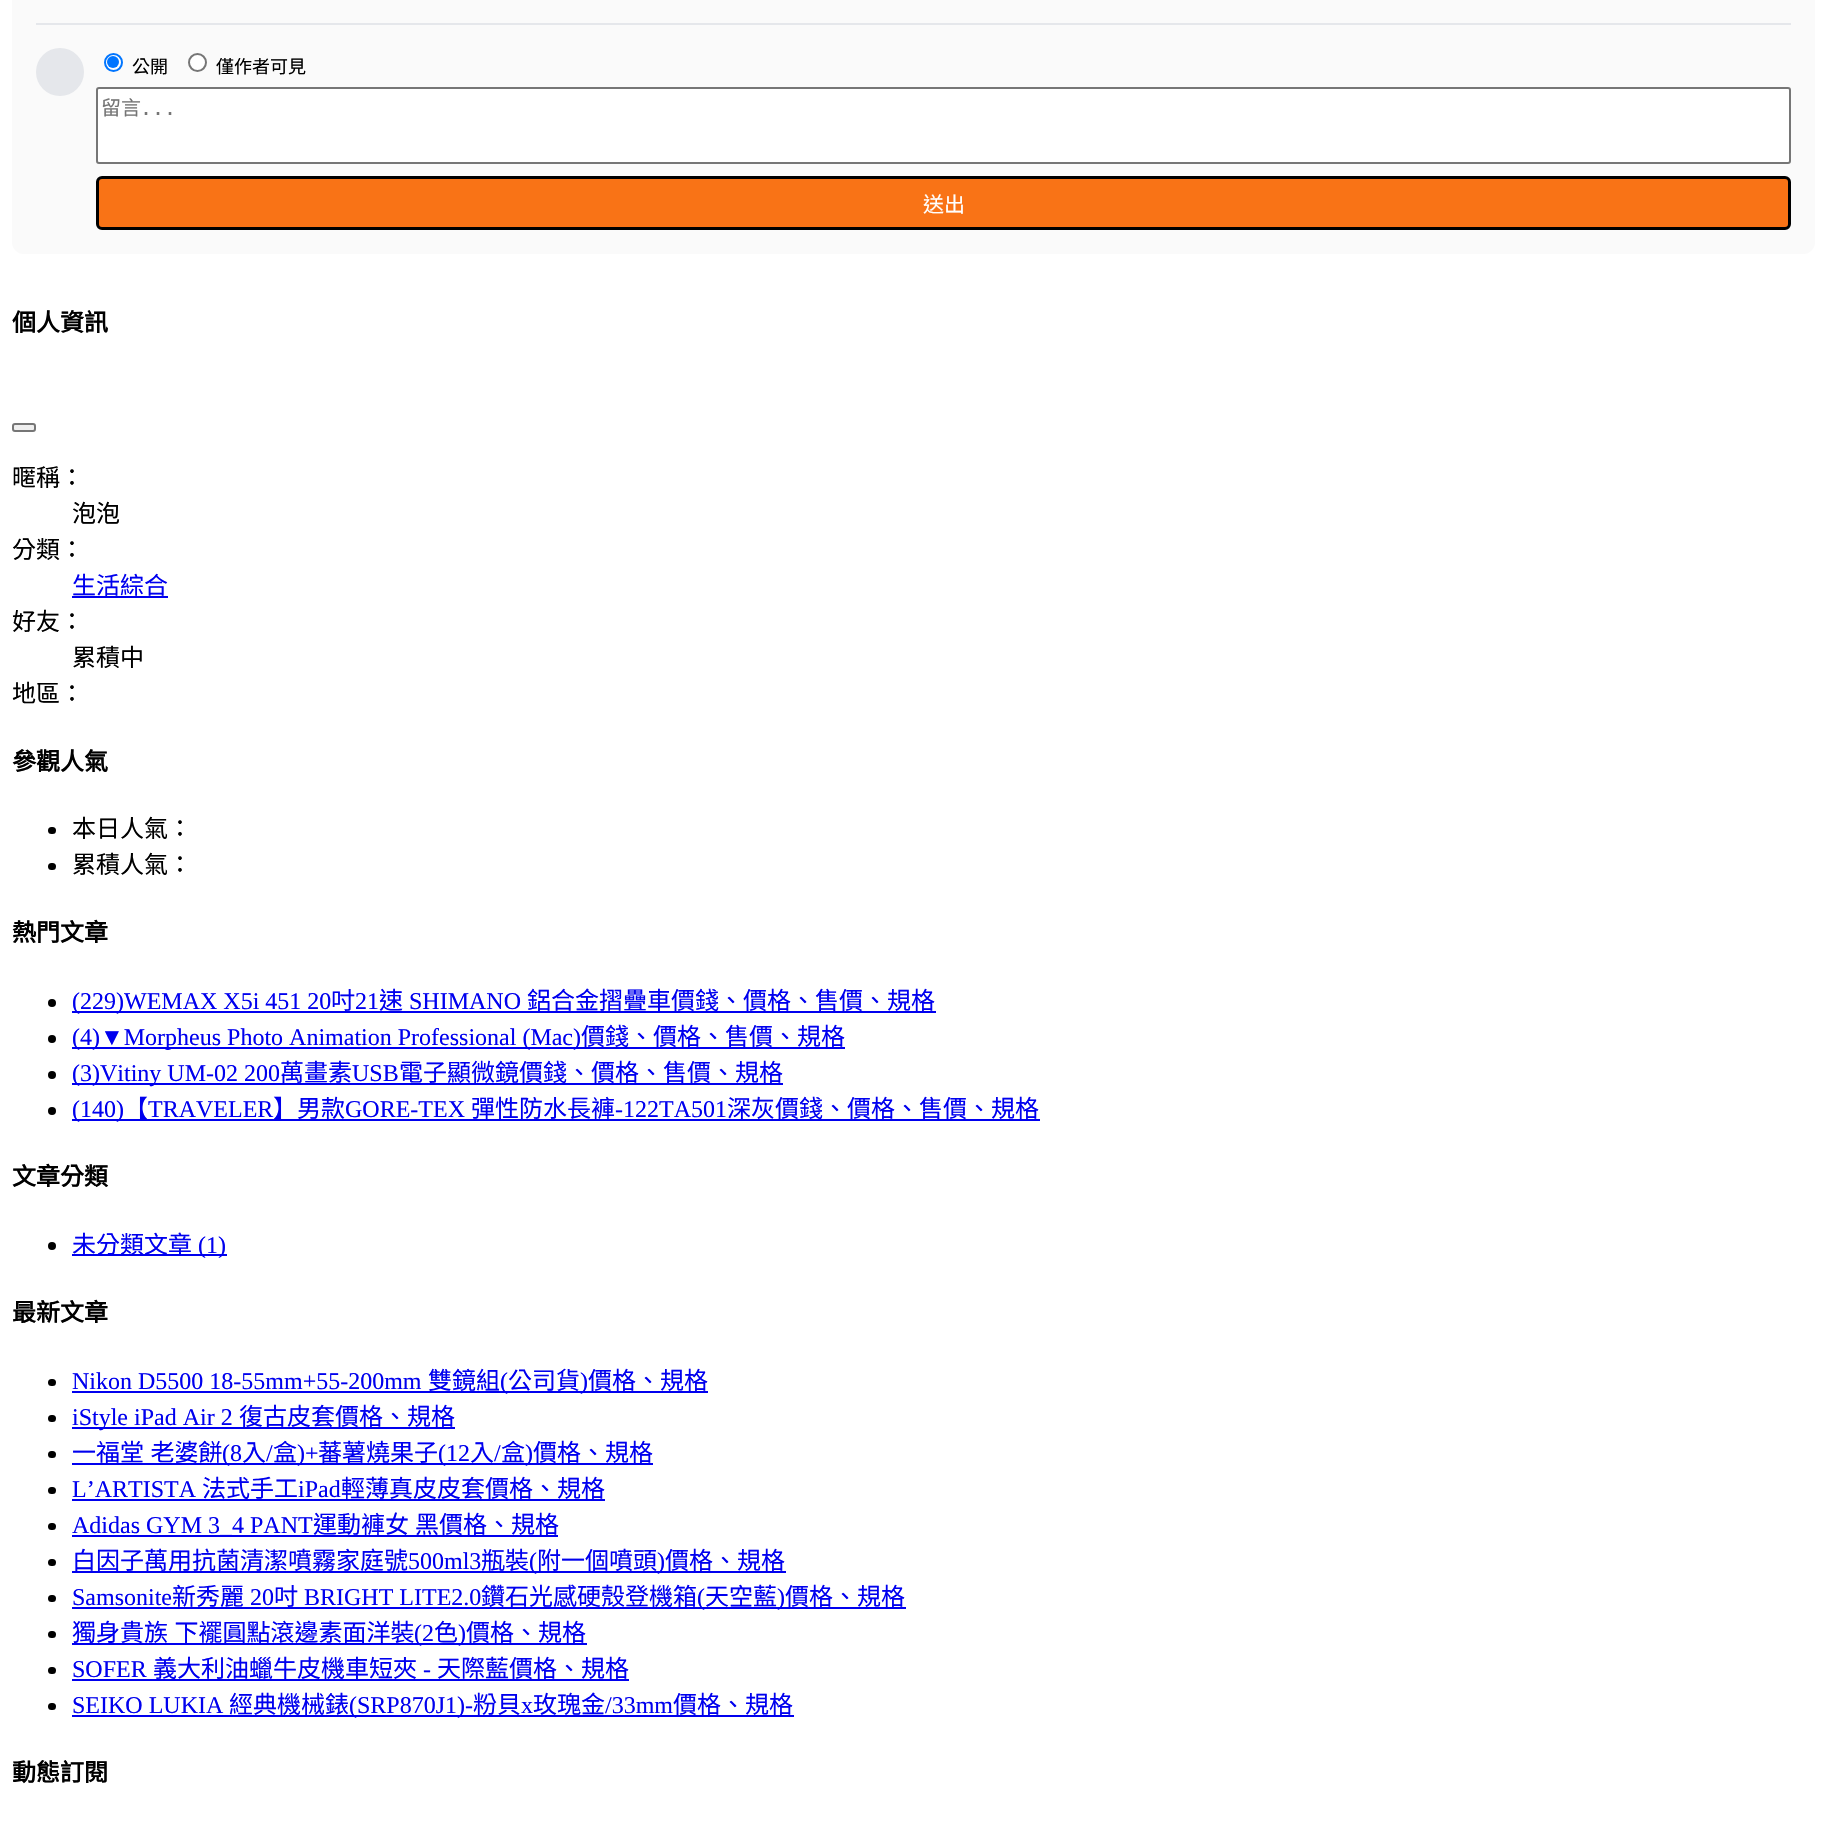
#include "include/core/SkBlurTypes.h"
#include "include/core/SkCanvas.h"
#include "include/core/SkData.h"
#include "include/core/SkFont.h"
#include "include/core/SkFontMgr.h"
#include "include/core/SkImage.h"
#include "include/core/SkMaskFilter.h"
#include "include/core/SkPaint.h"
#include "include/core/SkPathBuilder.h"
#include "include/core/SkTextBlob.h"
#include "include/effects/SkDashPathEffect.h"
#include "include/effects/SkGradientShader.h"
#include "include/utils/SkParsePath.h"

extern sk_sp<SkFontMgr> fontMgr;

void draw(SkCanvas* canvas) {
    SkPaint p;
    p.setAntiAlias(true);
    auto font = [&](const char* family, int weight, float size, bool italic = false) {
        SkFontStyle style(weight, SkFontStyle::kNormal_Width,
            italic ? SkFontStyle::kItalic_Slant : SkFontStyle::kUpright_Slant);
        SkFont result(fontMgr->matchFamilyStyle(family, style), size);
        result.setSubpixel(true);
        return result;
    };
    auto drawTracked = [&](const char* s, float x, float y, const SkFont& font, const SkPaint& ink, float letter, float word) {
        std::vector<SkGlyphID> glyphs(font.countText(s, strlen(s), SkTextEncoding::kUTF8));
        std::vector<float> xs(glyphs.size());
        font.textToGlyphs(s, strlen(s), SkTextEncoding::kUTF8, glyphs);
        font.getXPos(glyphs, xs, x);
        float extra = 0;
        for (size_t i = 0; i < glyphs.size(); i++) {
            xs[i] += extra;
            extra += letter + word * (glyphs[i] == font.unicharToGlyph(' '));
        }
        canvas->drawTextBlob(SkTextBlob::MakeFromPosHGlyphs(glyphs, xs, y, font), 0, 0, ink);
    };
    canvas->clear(0xFFFFFFFF);
    p.setColor(0xFFFAFAFA);
    canvas->drawRoundRect(SkRect::MakeLTRB(12, -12, 1815, 254), 12, 12, p);
    p.setColor(0xFFE5E7EB);
    canvas->drawRect(SkRect::MakeLTRB(36, 23, 1791, 25), p);
    canvas->drawCircle(60, 72, 24, p);
    p.setColor(0xFFFFFFFF);
    canvas->drawCircle(113.5f, 62.5f, 8.5f, p);
    p.setStyle(SkPaint::kStroke_Style);
    p.setStrokeWidth(2);
    p.setColor(0xFF0075FF);
    canvas->drawCircle(113.5f, 62.5f, 8.5f, p);
    p.setStyle(SkPaint::kFill_Style);
    canvas->drawCircle(113, 62, 6, p);
    auto font1 = font("Noto Sans CJK TC", 400, 18);
    p.setColor(0xFF000000);
    canvas->drawString("公開", 132, 73, font1, p);
    p.setColor(0xFFFFFFFF);
    canvas->drawCircle(197.5f, 62.5f, 8.5f, p);
    p.setStyle(SkPaint::kStroke_Style);
    p.setColor(0xFF767676);
    canvas->drawCircle(197.5f, 62.5f, 8.5f, p);
    p.setStyle(SkPaint::kFill_Style);
    p.setColor(0xFF000000);
    canvas->drawString("僅作者可見", 216, 73, font1, p);
    p.setColor(0xFFFFFFFF);
    canvas->drawRoundRect(SkRect::MakeLTRB(97, 88, 1790, 163), 2, 2, p);
    p.setStyle(SkPaint::kStroke_Style);
    p.setColor(0xFF767676);
    canvas->drawRoundRect(SkRect::MakeLTRB(97, 88, 1790, 163), 2, 2, p);
    auto font2 = font("Noto Sans CJK TC", 400, 20);
    p.setStyle(SkPaint::kFill_Style);
    p.setColor(0xFF757575);
    canvas->drawString("留言", 101, 115, font2, p);
    auto font3 = font("DejaVu Sans Mono", 400, 20);
    canvas->drawString("...", 140, 115, font3, p);
    p.setColor(0xFFF97316);
    canvas->drawRoundRect(SkRect::MakeLTRB(97.5f, 177.5f, 1789.5f, 228.5f), 4.5f, 4.5f, p);
    p.setStyle(SkPaint::kStroke_Style);
    p.setStrokeWidth(3);
    p.setColor(0xFF000000);
    canvas->drawRoundRect(SkRect::MakeLTRB(97.5f, 177.5f, 1789.5f, 228.5f), 4.5f, 4.5f, p);
    auto font4 = font("Noto Sans CJK TC", 400, 21);
    p.setStyle(SkPaint::kFill_Style);
    p.setColor(0xFFFFFFFF);
    canvas->drawString("送出", 923, 212, font4, p);
    auto font5 = font("Noto Sans CJK TC", 700, 24);
    p.setColor(0xFF000000);
    canvas->drawString("個人資訊", 12, 331, font5, p);
    p.setColor(0xFFEFEFEF);
    canvas->drawRoundRect(SkRect::MakeLTRB(13, 424, 35, 431), 2, 2, p);
    p.setStyle(SkPaint::kStroke_Style);
    p.setStrokeWidth(2);
    p.setColor(0xFF767676);
    canvas->drawRoundRect(SkRect::MakeLTRB(13, 424, 35, 431), 2, 2, p);
    auto font6 = font("Noto Sans CJK TC", 400, 24);
    p.setStyle(SkPaint::kFill_Style);
    p.setColor(0xFF000000);
    {
        const struct { const char* s; float x, y; } items[] = {
            {"暱稱：", 12, 486},
            {"泡泡", 72, 522},
            {"分類：", 12, 558},
        };
        for (auto [s, x, y] : items) {
            canvas->drawString(s, x, y, font6, p);
        }
    }
    p.setColor(0xFF0000EE);
    canvas->drawString("生活綜合", 72, 594, font6, p);
    canvas->drawRect(SkRect::MakeLTRB(72, 596, 168, 598), p);
    p.setColor(0xFF000000);
    {
        const struct { const char* s; float x, y; } items[] = {
            {"好友：", 12, 630},
            {"累積中", 72, 666},
            {"地區：", 12, 702},
        };
        for (auto [s, x, y] : items) {
            canvas->drawString(s, x, y, font6, p);
        }
    }
    canvas->drawString("參觀人氣", 12, 770, font5, p);
    canvas->drawRoundRect(SkRect::MakeLTRB(48, 827, 56, 834), 3.5f, 3.5f, p);
    canvas->drawString("本日人氣：", 72, 837, font6, p);
    canvas->drawRoundRect(SkRect::MakeLTRB(48, 863, 56, 870), 3.5f, 3.5f, p);
    canvas->drawString("累積人氣：", 72, 873, font6, p);
    canvas->drawString("熱門文章", 12, 941, font5, p);
    canvas->drawCircle(52, 1003, 4, p);
    p.setColor(0xFF0000EE);
    canvas->drawRect(SkRect::MakeLTRB(72, 1011, 936, 1013), p);
    auto font7 = font("Liberation Serif", 400, 24);
    canvas->drawString("(229)WEMAX X5i 451 20", 72, 1009, font7, p);
    canvas->drawString("吋", 331, 1009, font6, p);
    canvas->drawString("21", 355, 1009, font7, p);
    canvas->drawString("速", 379, 1009, font6, p);
    canvas->drawString("SHIMANO", 409, 1009, font7, p);
    canvas->drawString("鋁合金摺疊車價錢、價格、售價、規格", 527, 1009, font6, p);
    p.setColor(0xFF000000);
    canvas->drawCircle(52, 1039, 4, p);
    p.setColor(0xFF0000EE);
    canvas->drawRect(SkRect::MakeLTRB(72, 1047, 845, 1049), p);
    canvas->drawString("(4)▼Morpheus Photo Animation Professional (Mac)", 72, 1045, font7, p);
    canvas->drawString("價錢、價格、售價、規格", 581, 1045, font6, p);
    p.setColor(0xFF000000);
    canvas->drawCircle(52, 1075, 4, p);
    p.setColor(0xFF0000EE);
    canvas->drawRect(SkRect::MakeLTRB(72, 1083, 783, 1085), p);
    canvas->drawString("(3)Vitiny UM-02 200", 72, 1081, font7, p);
    canvas->drawString("萬畫素", 280, 1081, font6, p);
    canvas->drawString("USB", 352, 1081, font7, p);
    canvas->drawString("電子顯微鏡價錢、價格、售價、規格", 399, 1081, font6, p);
    p.setColor(0xFF000000);
    canvas->drawCircle(52, 1111, 4, p);
    p.setColor(0xFF0000EE);
    canvas->drawRect(SkRect::MakeLTRB(72, 1119, 1040, 1121), p);
    canvas->drawString("(140)", 72, 1117, font7, p);
    canvas->drawString("【", 124, 1117, font6, p);
    canvas->drawString("TRAVELER", 148, 1117, font7, p);
    canvas->drawString("】男款", 273, 1117, font6, p);
    canvas->drawString("GORE-TEX", 345, 1117, font7, p);
    canvas->drawString("彈性防水長褲", 471, 1117, font6, p);
    canvas->drawString("-122TA501", 615, 1117, font7, p);
    canvas->drawString("深灰價錢、價格、售價、規格", 727, 1117, font6, p);
    p.setColor(0xFF000000);
    canvas->drawString("文章分類", 12, 1185, font5, p);
    canvas->drawCircle(52, 1246, 4, p);
    p.setColor(0xFF0000EE);
    canvas->drawRect(SkRect::MakeLTRB(72, 1254, 227, 1256), p);
    canvas->drawString("未分類文章", 72, 1253, font6, p);
    canvas->drawString("(1)", 198, 1253, font7, p);
    p.setColor(0xFF000000);
    canvas->drawString("最新文章", 12, 1321, font5, p);
    canvas->drawRoundRect(SkRect::MakeLTRB(48, 1379, 56, 1386), 3.5f, 3.5f, p);
    p.setColor(0xFF0000EE);
    canvas->drawString("Nikon D5500 18-55mm+55-200mm", 72, 1389, font7, p);
    canvas->drawString("雙鏡組", 428, 1389, font6, p);
    canvas->drawRect(SkRect::MakeLTRB(72, 1391, 708, 1393), p);
    canvas->drawString("(", 500, 1389, font7, p);
    canvas->drawString("公司貨", 508, 1389, font6, p);
    canvas->drawString(")", 580, 1389, font7, p);
    canvas->drawString("價格、規格", 588, 1389, font6, p);
    p.setColor(0xFF000000);
    canvas->drawRoundRect(SkRect::MakeLTRB(48, 1415, 56, 1422), 3.5f, 3.5f, p);
    p.setColor(0xFF0000EE);
    canvas->drawRect(SkRect::MakeLTRB(72, 1427, 455, 1429), p);
    canvas->drawString("iStyle iPad Air 2", 72, 1425, font7, p);
    canvas->drawString("復古皮套價格、規格", 239, 1425, font6, p);
    p.setColor(0xFF000000);
    canvas->drawRoundRect(SkRect::MakeLTRB(48, 1451, 56, 1458), 3.5f, 3.5f, p);
    p.setColor(0xFF0000EE);
    drawTracked("一福堂 老婆餅", 72, 1461, font6, p, 0, 1);
    canvas->drawRect(SkRect::MakeLTRB(72, 1463, 653, 1465), p);
    canvas->drawString("(8", 222, 1461, font7, p);
    canvas->drawString("入", 242, 1461, font6, p);
    canvas->drawString("/", 266, 1461, font7, p);
    canvas->drawString("盒", 273, 1461, font6, p);
    canvas->drawString(")+", 297, 1461, font7, p);
    canvas->drawString("蕃薯燒果子", 318, 1461, font6, p);
    canvas->drawString("(12", 438, 1461, font7, p);
    canvas->drawString("入", 470, 1461, font6, p);
    canvas->drawString("/", 494, 1461, font7, p);
    canvas->drawString("盒", 501, 1461, font6, p);
    canvas->drawString(")", 525, 1461, font7, p);
    canvas->drawString("價格、規格", 533, 1461, font6, p);
    p.setColor(0xFF000000);
    canvas->drawRoundRect(SkRect::MakeLTRB(48, 1487, 56, 1494), 3.5f, 3.5f, p);
    p.setColor(0xFF0000EE);
    canvas->drawString("L’ARTISTA", 72, 1497, font7, p);
    canvas->drawRect(SkRect::MakeLTRB(72, 1499, 605, 1501), p);
    canvas->drawString("法式手工", 202, 1497, font6, p);
    canvas->drawString("iPad", 298, 1497, font7, p);
    canvas->drawString("輕薄真皮皮套價格、規格", 341, 1497, font6, p);
    p.setColor(0xFF000000);
    canvas->drawRoundRect(SkRect::MakeLTRB(48, 1523, 56, 1530), 3.5f, 3.5f, p);
    p.setColor(0xFF0000EE);
    canvas->drawRect(SkRect::MakeLTRB(72, 1535, 558, 1537), p);
    canvas->drawString("Adidas GYM 3_4 PANT", 72, 1533, font7, p);
    canvas->drawString("運動褲女", 313, 1533, font6, p);
    canvas->drawString("黑價格、規格", 415, 1533, font6, p);
    p.setColor(0xFF000000);
    canvas->drawRoundRect(SkRect::MakeLTRB(48, 1559, 56, 1566), 3.5f, 3.5f, p);
    p.setColor(0xFF0000EE);
    canvas->drawRect(SkRect::MakeLTRB(72, 1571, 786, 1573), p);
    canvas->drawString("白因子萬用抗菌清潔噴霧家庭號", 72, 1569, font6, p);
    canvas->drawString("500ml3", 408, 1569, font7, p);
    canvas->drawString("瓶裝", 481, 1569, font6, p);
    canvas->drawString("(", 529, 1569, font7, p);
    canvas->drawString("附一個噴頭", 537, 1569, font6, p);
    canvas->drawString(")", 657, 1569, font7, p);
    canvas->drawString("價格、規格", 665, 1569, font6, p);
    p.setColor(0xFF000000);
    canvas->drawRoundRect(SkRect::MakeLTRB(48, 1595, 56, 1602), 3.5f, 3.5f, p);
    p.setColor(0xFF0000EE);
    canvas->drawString("Samsonite", 72, 1605, font7, p);
    canvas->drawString("新秀麗", 172, 1605, font6, p);
    canvas->drawString("20", 250, 1605, font7, p);
    canvas->drawString("吋", 274, 1605, font6, p);
    canvas->drawString("BRIGHT LITE2.0", 304, 1605, font7, p);
    canvas->drawString("鑽石光感硬殼登機箱", 481, 1605, font6, p);
    canvas->drawRect(SkRect::MakeLTRB(72, 1607, 906, 1609), p);
    canvas->drawString("(", 697, 1605, font7, p);
    canvas->drawString("天空藍", 705, 1605, font6, p);
    canvas->drawString(")", 777, 1605, font7, p);
    canvas->drawString("價格、規格", 785, 1605, font6, p);
    p.setColor(0xFF000000);
    canvas->drawRoundRect(SkRect::MakeLTRB(48, 1631, 56, 1638), 3.5f, 3.5f, p);
    p.setColor(0xFF0000EE);
    drawTracked("獨身貴族 下襬圓點滾邊素面洋裝", 72, 1641, font6, p, 0, 1);
    canvas->drawRect(SkRect::MakeLTRB(72, 1643, 587, 1645), p);
    canvas->drawString("(2", 414, 1641, font7, p);
    canvas->drawString("色", 434, 1641, font6, p);
    canvas->drawString(")", 458, 1641, font7, p);
    canvas->drawString("價格、規格", 466, 1641, font6, p);
    p.setColor(0xFF000000);
    canvas->drawRoundRect(SkRect::MakeLTRB(48, 1667, 56, 1674), 3.5f, 3.5f, p);
    p.setColor(0xFF0000EE);
    canvas->drawString("SOFER", 72, 1677, font7, p);
    canvas->drawString("義大利油蠟牛皮機車短夾", 153, 1677, font6, p);
    canvas->drawString("-", 423, 1677, font7, p);
    canvas->drawRect(SkRect::MakeLTRB(72, 1679, 629, 1681), p);
    canvas->drawString("天際藍價格、規格", 437, 1677, font6, p);
    p.setColor(0xFF000000);
    canvas->drawRoundRect(SkRect::MakeLTRB(48, 1703, 56, 1710), 3.5f, 3.5f, p);
    p.setColor(0xFF0000EE);
    canvas->drawString("SEIKO LUKIA", 72, 1713, font7, p);
    canvas->drawString("經典機械錶", 229, 1713, font6, p);
    canvas->drawRect(SkRect::MakeLTRB(72, 1715, 794, 1717), p);
    canvas->drawString("(SRP870J1)-", 349, 1713, font7, p);
    canvas->drawString("粉貝", 473, 1713, font6, p);
    canvas->drawString("x", 521, 1713, font7, p);
    canvas->drawString("玫瑰金", 533, 1713, font6, p);
    canvas->drawString("/33mm", 605, 1713, font7, p);
    canvas->drawString("價格、規格", 673, 1713, font6, p);
    p.setColor(0xFF000000);
    canvas->drawString("動態訂閱", 12, 1781, font5, p);
}
